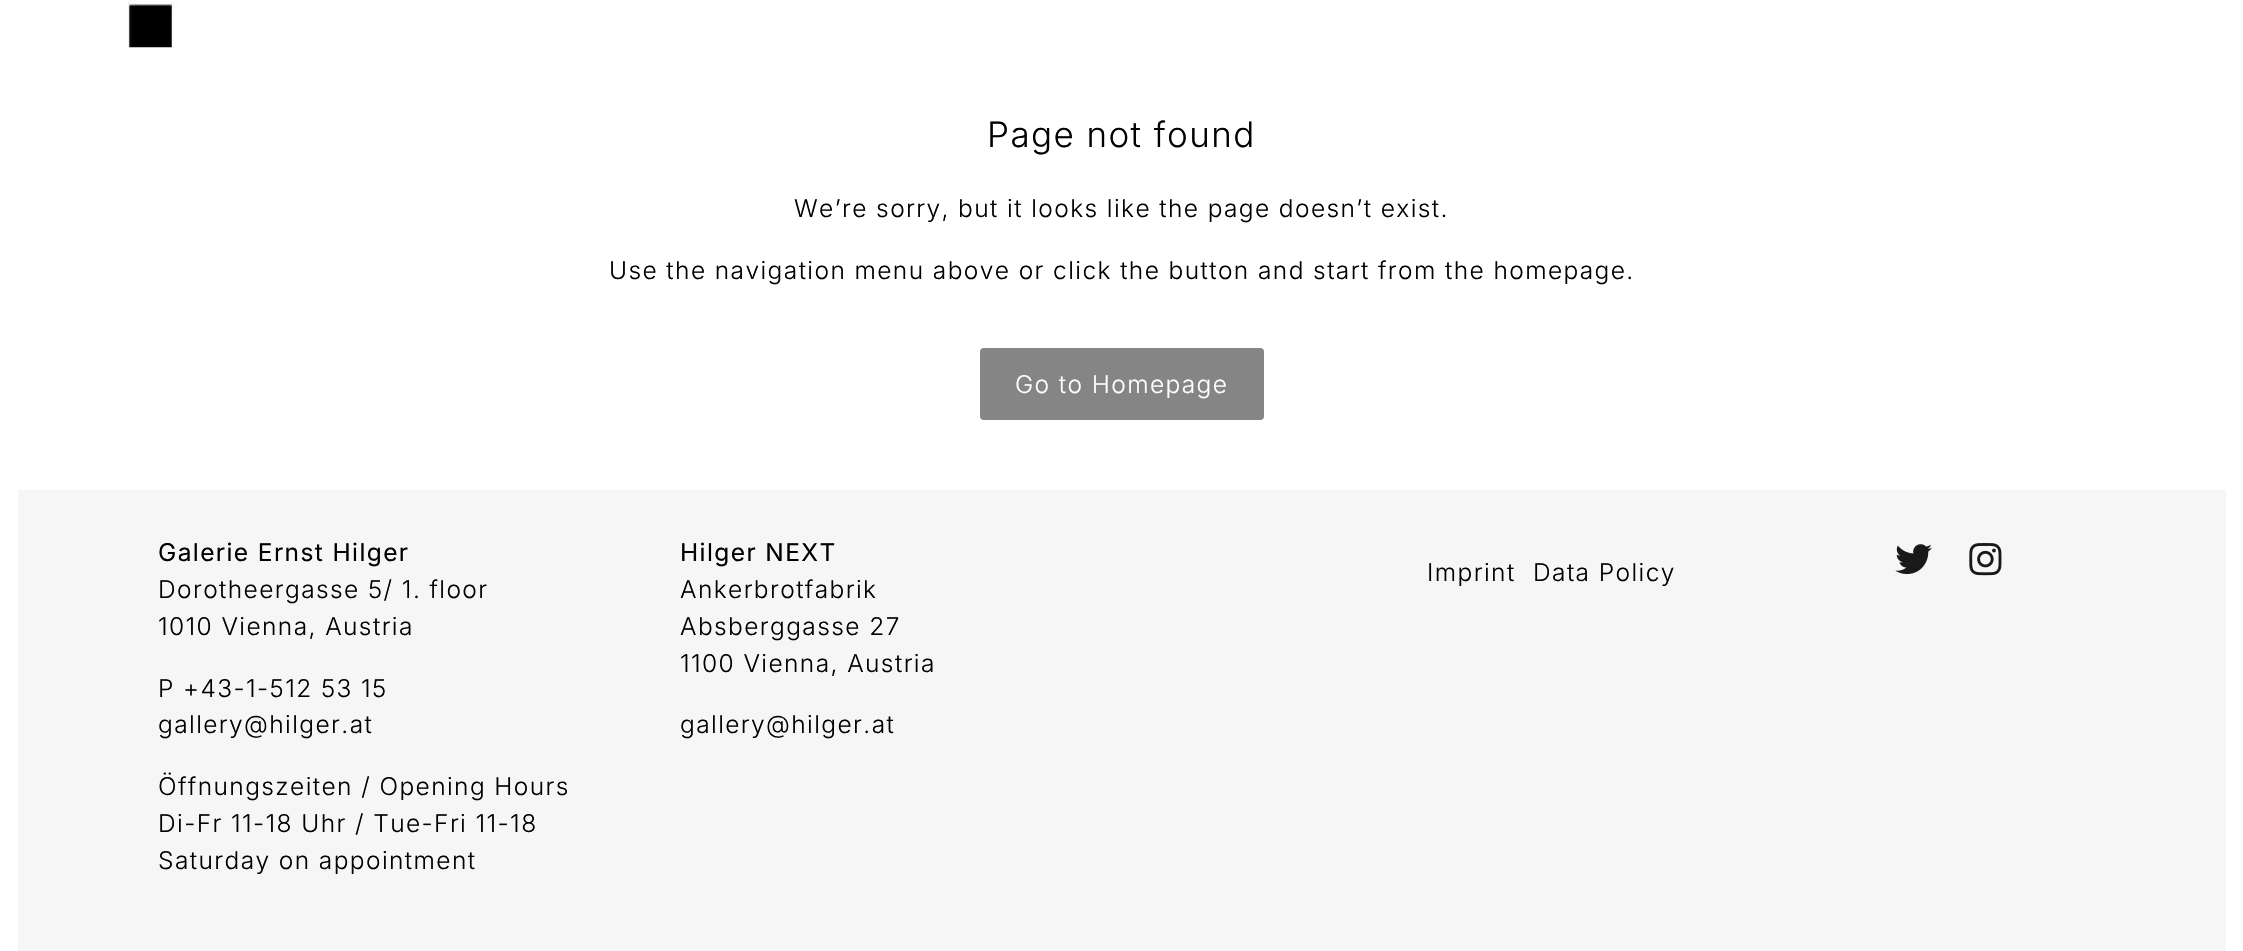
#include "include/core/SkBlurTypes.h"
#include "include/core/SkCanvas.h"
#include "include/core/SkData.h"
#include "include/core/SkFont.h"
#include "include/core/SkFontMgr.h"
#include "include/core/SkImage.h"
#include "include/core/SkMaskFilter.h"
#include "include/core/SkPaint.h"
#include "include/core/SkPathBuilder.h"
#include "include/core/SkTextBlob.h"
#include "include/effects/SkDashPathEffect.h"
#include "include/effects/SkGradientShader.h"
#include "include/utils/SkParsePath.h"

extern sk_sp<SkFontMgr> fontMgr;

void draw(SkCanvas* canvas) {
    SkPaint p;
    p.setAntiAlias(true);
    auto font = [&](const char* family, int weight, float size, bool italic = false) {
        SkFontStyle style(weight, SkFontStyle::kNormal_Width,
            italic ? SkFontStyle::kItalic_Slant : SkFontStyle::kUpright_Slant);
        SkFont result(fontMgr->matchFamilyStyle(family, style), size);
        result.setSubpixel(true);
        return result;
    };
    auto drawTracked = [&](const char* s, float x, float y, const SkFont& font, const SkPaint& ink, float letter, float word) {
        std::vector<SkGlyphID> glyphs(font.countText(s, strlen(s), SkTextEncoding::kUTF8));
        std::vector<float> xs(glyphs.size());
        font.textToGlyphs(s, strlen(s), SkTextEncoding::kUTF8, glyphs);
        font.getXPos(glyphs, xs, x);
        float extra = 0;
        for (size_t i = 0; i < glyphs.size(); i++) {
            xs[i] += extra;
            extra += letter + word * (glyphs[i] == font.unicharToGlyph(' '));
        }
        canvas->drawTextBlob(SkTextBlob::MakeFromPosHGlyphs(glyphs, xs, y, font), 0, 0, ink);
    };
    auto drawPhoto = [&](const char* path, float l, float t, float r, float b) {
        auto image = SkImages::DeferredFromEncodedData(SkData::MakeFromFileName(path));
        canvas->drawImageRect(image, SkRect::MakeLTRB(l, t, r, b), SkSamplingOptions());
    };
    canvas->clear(0xFFFFFFFF);
    drawPhoto("media/1.png", 127, 0, 179, 48);
    auto font1 = font("Inter", 300, 35);
    p.setColor(0xFF000000);
    drawTracked("Page not found", 987, 147, font1, p, 1.4f, 0);
    auto font2 = font("Inter", 300, 24.5f);
    drawTracked("We’re sorry, but it looks like the page doesn’t exist.", 794, 217, font2, p, 1.4f, 0);
    drawTracked("Use the navigation menu above or click the button and start from the homepage.", 609, 279, font2, p, 1.4f, 0);
    p.setColor(0xFF868585);
    canvas->drawRoundRect(SkRect::MakeLTRB(980, 348, 1264, 420), 4, 4, p);
    p.setColor(0xFFFFFFFF);
    drawTracked("Go to Homepage", 1015, 393, font2, p, 1.4f, 0);
    p.setColor(0xFFF6F6F6);
    canvas->drawRect(SkRect::MakeLTRB(18, 490, 2226, 951), p);
    auto font3 = font("Inter", 400, 24.5f);
    p.setColor(0xFF000000);
    drawTracked("Galerie Ernst Hilger", 158, 561, font3, p, 1.4f, 0);
    {
        const struct { const char* s; float x, y; } items[] = {
            {"Dorotheergasse 5/ 1. floor", 158, 598},
            {"1010 Vienna, Austria", 158, 635},
            {"P +43-1-512 53 15", 158, 697},
            {"gallery@hilger.at", 158, 733},
            {"Öffnungszeiten / Opening Hours", 158, 795},
            {"Di-Fr 11-18 Uhr / Tue-Fri 11-18", 158, 832},
            {"Saturday on appointment", 158, 869},
        };
        for (auto [s, x, y] : items) {
            drawTracked(s, x, y, font2, p, 1.4f, 0);
        }
    }
    drawTracked("Hilger NEXT", 680, 561, font3, p, 1.4f, 0);
    {
        const struct { const char* s; float x, y; } items[] = {
            {"Ankerbrotfabrik", 680, 598},
            {"Absberggasse 27", 680, 635},
            {"1100 Vienna, Austria", 680, 672},
            {"gallery@hilger.at", 680, 733},
            {"Imprint", 1427, 581},
            {"Data Policy", 1533, 581},
        };
        for (auto [s, x, y] : items) {
            drawTracked(s, x, y, font2, p, 1.4f, 0);
        }
    }
    drawPhoto("media/2.png", 1895, 544, 1932, 575);
    drawPhoto("media/3.png", 1969, 543, 2002, 576);
}
